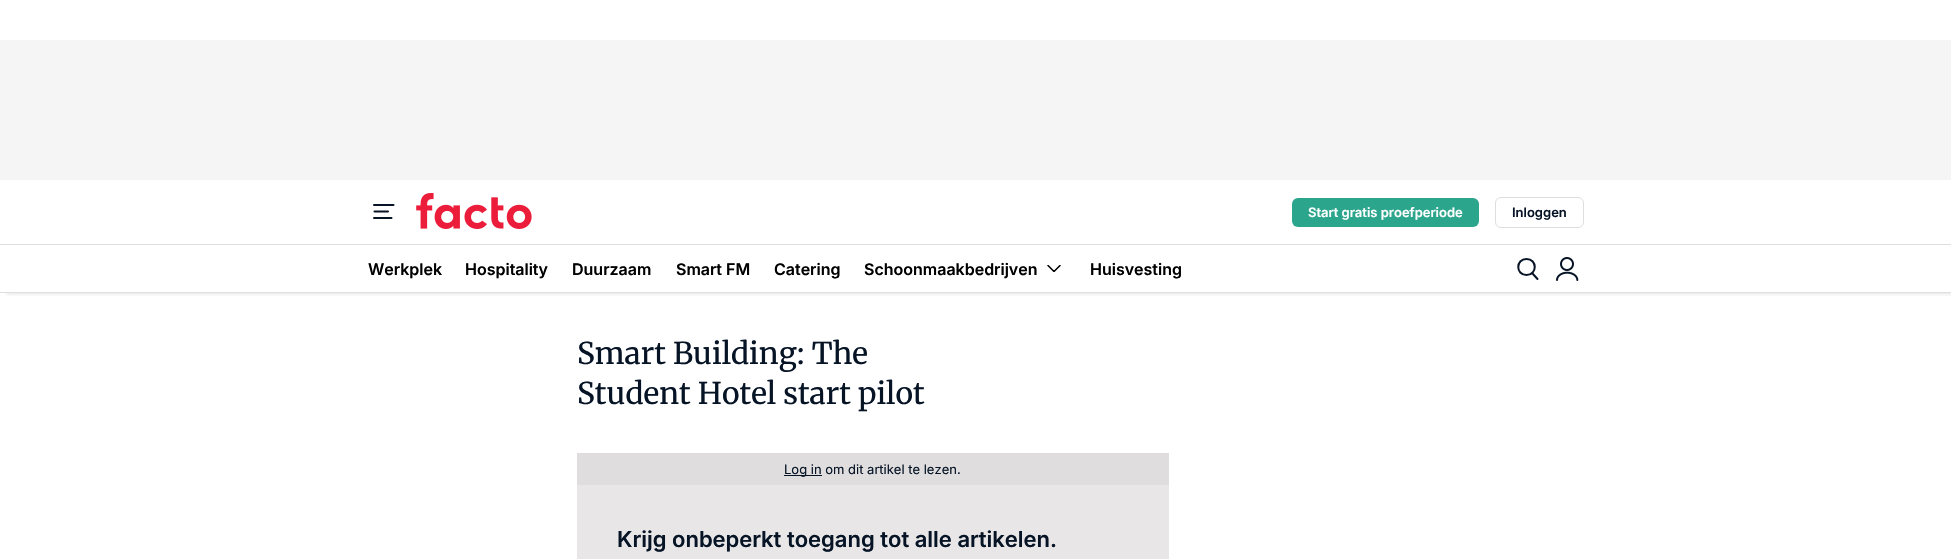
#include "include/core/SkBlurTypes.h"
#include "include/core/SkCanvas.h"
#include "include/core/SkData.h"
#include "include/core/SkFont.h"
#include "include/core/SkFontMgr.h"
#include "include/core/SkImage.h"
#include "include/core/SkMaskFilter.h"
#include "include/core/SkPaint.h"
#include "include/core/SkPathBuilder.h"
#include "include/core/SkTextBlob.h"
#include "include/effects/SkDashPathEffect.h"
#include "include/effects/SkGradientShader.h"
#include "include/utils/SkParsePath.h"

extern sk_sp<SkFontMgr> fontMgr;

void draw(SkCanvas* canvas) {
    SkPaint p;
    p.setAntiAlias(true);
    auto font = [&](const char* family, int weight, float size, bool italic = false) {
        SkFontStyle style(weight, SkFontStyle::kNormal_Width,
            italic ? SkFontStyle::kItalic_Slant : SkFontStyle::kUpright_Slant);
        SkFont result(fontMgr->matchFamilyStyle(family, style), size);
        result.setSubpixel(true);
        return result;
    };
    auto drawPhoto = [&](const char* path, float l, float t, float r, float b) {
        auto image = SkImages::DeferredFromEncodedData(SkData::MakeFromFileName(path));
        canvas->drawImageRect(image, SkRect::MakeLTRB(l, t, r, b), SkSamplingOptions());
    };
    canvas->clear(0xFFFFFFFF);
    p.setColor(0xFFF5F5F5);
    canvas->drawRect(SkRect::MakeLTRB(0, 40, 1951, 180), p);
    canvas->save();
    canvas->clipRect(SkRect::MakeLTRB(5, 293, 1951, 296));
    p.setColor(0x1A000000);
    p.setMaskFilter(SkMaskFilter::MakeBlur(kNormal_SkBlurStyle, 2));
    canvas->drawRect(SkRect::MakeLTRB(6, 185, 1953, 294), p);
    p.setMaskFilter(nullptr);
    canvas->restore();
    p.setColor(0xFFDEDEDE);
    canvas->drawRect(SkRect::MakeLTRB(0, 292, 1951, 293), p);
    p.setStyle(SkPaint::kStroke_Style);
    p.setStrokeWidth(2);
    p.setStrokeCap(SkPaint::kRound_Cap);
    p.setStrokeJoin(SkPaint::kRound_Join);
    p.setColor(0xFF061426);
    canvas->drawPath(SkPathBuilder().moveTo(374, 205).lineTo(393.5f, 205).moveTo(374.5f, 211.5f).lineTo(388, 211.5f).moveTo(374, 218).lineTo(391.5f, 218).detach(), p);
    drawPhoto("media/1.png", 416, 193, 532, 229);
    p.setStyle(SkPaint::kFill_Style);
    p.setColor(0xFF2CA58D);
    canvas->drawRoundRect(SkRect::MakeLTRB(1292, 198, 1479, 227), 6, 6, p);
    auto font1 = font("Inter", 600, 13);
    p.setColor(0xFFFFFFFF);
    canvas->drawString("Start gratis proefperiode", 1308, 217, font1, p);
    p.setStyle(SkPaint::kStroke_Style);
    p.setStrokeWidth(1);
    p.setStrokeCap(SkPaint::kButt_Cap);
    p.setStrokeJoin(SkPaint::kMiter_Join);
    p.setColor(0xFFDEDEDE);
    canvas->drawRoundRect(SkRect::MakeLTRB(1495.5f, 197.5f, 1583.5f, 227.5f), 5.5f, 5.5f, p);
    p.setStyle(SkPaint::kFill_Style);
    p.setColor(0xFF061426);
    canvas->drawString("Inloggen", 1512, 217, font1, p);
    p.setColor(0xFFDEDEDE);
    canvas->drawRect(SkRect::MakeLTRB(0, 244, 1951, 245), p);
    auto font2 = font("Inter", 600, 16);
    p.setColor(0xFF000000);
    {
        const struct { const char* s; float x, y; } items[] = {
            {"Werkplek", 368, 275},
            {"Hospitality", 465, 275},
            {"Duurzaam", 572, 275},
            {"Smart FM", 676, 275},
            {"Catering", 774, 275},
            {"Schoonmaakbedrijven", 864, 275},
        };
        for (auto [s, x, y] : items) {
            canvas->drawString(s, x, y, font2, p);
        }
    }
    canvas->save();
    canvas->clipPath(SkPathBuilder().moveTo(1047, 265).lineTo(1061, 265).lineTo(1061, 272).lineTo(1047, 272).close().detach(), true);
    p.setStyle(SkPaint::kStroke_Style);
    p.setStrokeWidth(1.5f);
    p.setStrokeCap(SkPaint::kRound_Cap);
    p.setStrokeJoin(SkPaint::kRound_Join);
    canvas->drawPath(SkPathBuilder().moveTo(1060, 265.5f).lineTo(1054, 271.5f).lineTo(1048, 265.5f).detach(), p);
    canvas->restore();
    p.setStyle(SkPaint::kFill_Style);
    canvas->drawString("Huisvesting", 1090, 275, font2, p);
    p.setStyle(SkPaint::kStroke_Style);
    p.setStrokeWidth(2);
    p.setColor(0xFF061426);
    canvas->drawPath(SkPathBuilder().moveTo(1526.5f, 275).cubicTo(1537.5f, 275, 1537.5f, 259, 1526.5f, 259).cubicTo(1515.5f, 259, 1515.5f, 275, 1526.5f, 275).moveTo(1532.5f, 273.5f).lineTo(1537.5f, 279).detach(), p);
    drawPhoto("media/2.png", 1556, 257, 1579, 281);
    auto font3 = font("Merriweather", 400, 30);
    p.setStyle(SkPaint::kFill_Style);
    canvas->drawString("Smart Building: The", 577, 364, font3, p);
    canvas->drawString("Student Hotel start pilot", 577, 404, font3, p);
    p.setColor(0xFFDFDDDD);
    canvas->drawRect(SkRect::MakeLTRB(577, 453, 1169, 485), p);
    p.setColor(0xFF061426);
    canvas->drawRect(SkRect::MakeLTRB(784, 475, 822, 476), p);
    auto font4 = font("Inter", 400, 13);
    canvas->drawString("Log in om dit artikel te lezen.", 784, 474, font4, p);
    p.setColor(0xFFE8E6E6);
    canvas->drawRect(SkRect::MakeLTRB(577, 485, 1169, 559), p);
    auto font5 = font("Inter", 600, 22);
    p.setColor(0xFF061426);
    canvas->drawString("Krijg onbeperkt toegang tot alle artikelen.", 617, 547, font5, p);
}
